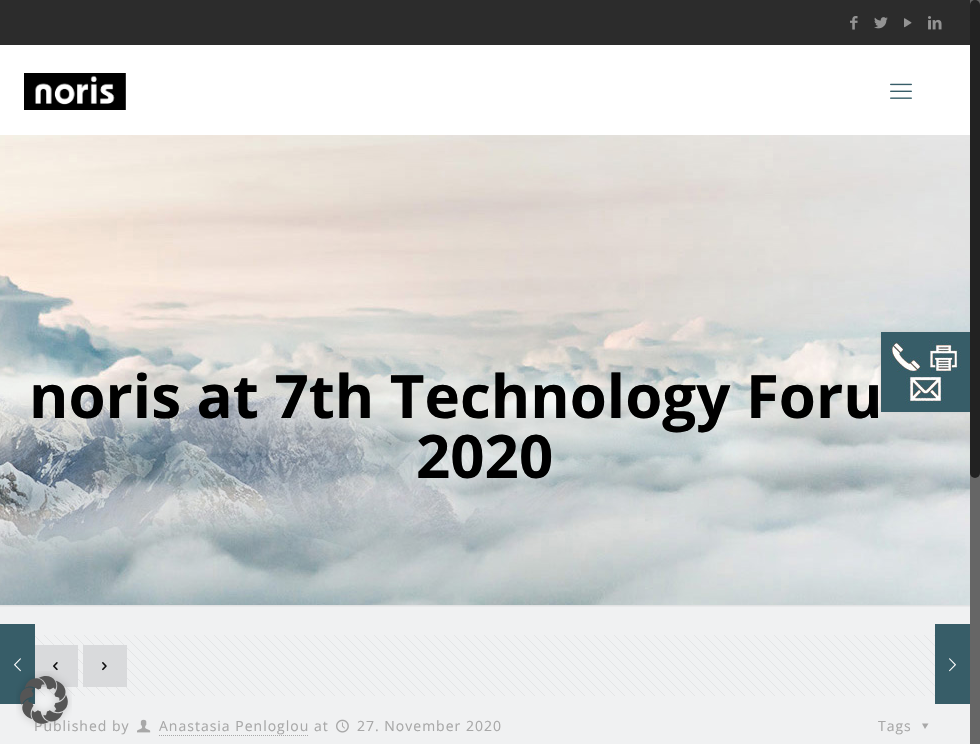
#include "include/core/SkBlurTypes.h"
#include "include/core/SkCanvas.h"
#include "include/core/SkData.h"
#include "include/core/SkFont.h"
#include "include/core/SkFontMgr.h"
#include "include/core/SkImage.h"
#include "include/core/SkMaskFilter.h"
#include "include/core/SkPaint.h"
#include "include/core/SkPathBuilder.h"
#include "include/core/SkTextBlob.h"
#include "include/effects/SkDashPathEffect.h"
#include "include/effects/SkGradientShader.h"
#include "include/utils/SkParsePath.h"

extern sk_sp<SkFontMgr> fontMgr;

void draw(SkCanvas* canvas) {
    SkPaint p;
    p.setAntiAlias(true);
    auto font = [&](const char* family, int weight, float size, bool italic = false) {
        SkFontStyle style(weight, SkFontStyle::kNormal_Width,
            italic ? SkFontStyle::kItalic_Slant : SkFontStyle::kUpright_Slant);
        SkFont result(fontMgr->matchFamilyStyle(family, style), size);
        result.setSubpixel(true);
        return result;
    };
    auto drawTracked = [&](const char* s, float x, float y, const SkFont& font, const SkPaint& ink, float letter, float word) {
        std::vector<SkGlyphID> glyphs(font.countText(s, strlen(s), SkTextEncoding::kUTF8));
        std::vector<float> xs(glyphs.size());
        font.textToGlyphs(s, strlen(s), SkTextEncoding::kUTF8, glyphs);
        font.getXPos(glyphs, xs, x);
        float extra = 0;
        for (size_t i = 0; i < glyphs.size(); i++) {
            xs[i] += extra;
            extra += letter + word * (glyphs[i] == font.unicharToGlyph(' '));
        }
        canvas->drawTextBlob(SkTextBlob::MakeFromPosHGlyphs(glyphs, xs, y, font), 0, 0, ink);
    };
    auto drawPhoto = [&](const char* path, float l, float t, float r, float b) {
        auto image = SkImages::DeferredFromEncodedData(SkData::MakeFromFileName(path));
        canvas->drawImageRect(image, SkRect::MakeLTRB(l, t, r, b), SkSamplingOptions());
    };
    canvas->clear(0xFFF0F1F2);
    p.setColor(0xFF375D68);
    canvas->drawRect(SkRect::MakeLTRB(0, 624, 35, 704), p);
    drawPhoto("media/1.png", 14, 658, 21, 672);
    p.setColor(0xFF2C2C2C);
    canvas->drawRect(SkRect::MakeLTRB(0, 0, 970, 45), p);
    drawPhoto("media/2.png", 850, 16, 858, 30);
    drawPhoto("media/3.png", 874, 17, 888, 29);
    drawPhoto("media/4.png", 904, 18, 912, 28);
    drawPhoto("media/5.png", 928, 16, 942, 30);
    p.setColor(0xFFFFFFFF);
    canvas->drawRect(SkRect::MakeLTRB(0, 45, 970, 135), p);
    drawPhoto("media/6.png", 24, 73, 126, 110);
    drawPhoto("media/7.png", 890, 83, 912, 99);
    drawPhoto("media/8.png", 0, 135, 970, 605);
    auto font1 = font("Open Sans", 700, 60);
    p.setColor(0xFF000000);
    canvas->drawString("noris at 7th Technology Foru", 29, 418, font1, p);
    canvas->drawString("2020", 416, 478, font1, p);
    drawPhoto("media/9.png", 0, 605, 970, 607);
    p.setColor(0xFFCCCCCC);
    p.setMaskFilter(SkMaskFilter::MakeBlur(kNormal_SkBlurStyle, 2.5f));
    canvas->drawRect(SkRect::MakeLTRB(881, 332, 970, 412), p);
    p.setMaskFilter(nullptr);
    drawPhoto("media/10.png", 881, 332, 970, 412);
    drawPhoto("media/11.png", 35, 635, 935, 696);
    p.setColor(0xFFD9DADC);
    canvas->drawRect(SkRect::MakeLTRB(35, 645, 78, 687), p);
    drawPhoto("media/12.png", 53, 662, 58, 671);
    canvas->drawRect(SkRect::MakeLTRB(83, 645, 127, 687), p);
    drawPhoto("media/13.png", 102, 662, 107, 671);
    auto font2 = font("Open Sans", 400, 14);
    p.setColor(0xFFA8A8A8);
    drawTracked("Published by", 34, 731, font2, p, 1, 0);
    drawPhoto("media/14.png", 137, 719, 151, 733);
    drawTracked("Anastasia Penloglou at", 159, 731, font2, p, 1, 0);
    p.setStyle(SkPaint::kStroke_Style);
    p.setStrokeWidth(1);
    p.setPathEffect(SkDashPathEffect::Make({{1, 1}}, 0));
    canvas->drawPath(SkPathBuilder().moveTo(159, 735.5f).lineTo(309, 735.5f).detach(), p);
    p.setPathEffect(nullptr);
    drawPhoto("media/15.png", 336, 719, 349, 733);
    p.setStyle(SkPaint::kFill_Style);
    drawTracked("27. November 2020", 357, 731, font2, p, 1, 0);
    drawTracked("Tags", 878, 731, font2, p, 1, 0);
    canvas->drawPath(SkPathBuilder().moveTo(928.5f, 723.5f).lineTo(925, 729).lineTo(922, 723.5f).close().detach(), p);
    p.setColor(0xFF375D68);
    canvas->drawRect(SkRect::MakeLTRB(935, 624, 970, 704), p);
    drawPhoto("media/16.png", 949, 658, 956, 672);
    p.setColor(0xFF666666);
    canvas->drawRect(SkRect::MakeLTRB(970, 0, 980, 744), p);
    p.setColor(0xFF222222);
    canvas->drawRoundRect(SkRect::MakeLTRB(970, 0, 980, 478), 5, 5, p);
    drawPhoto("media/17.png", 16, 671, 72, 728);
}
